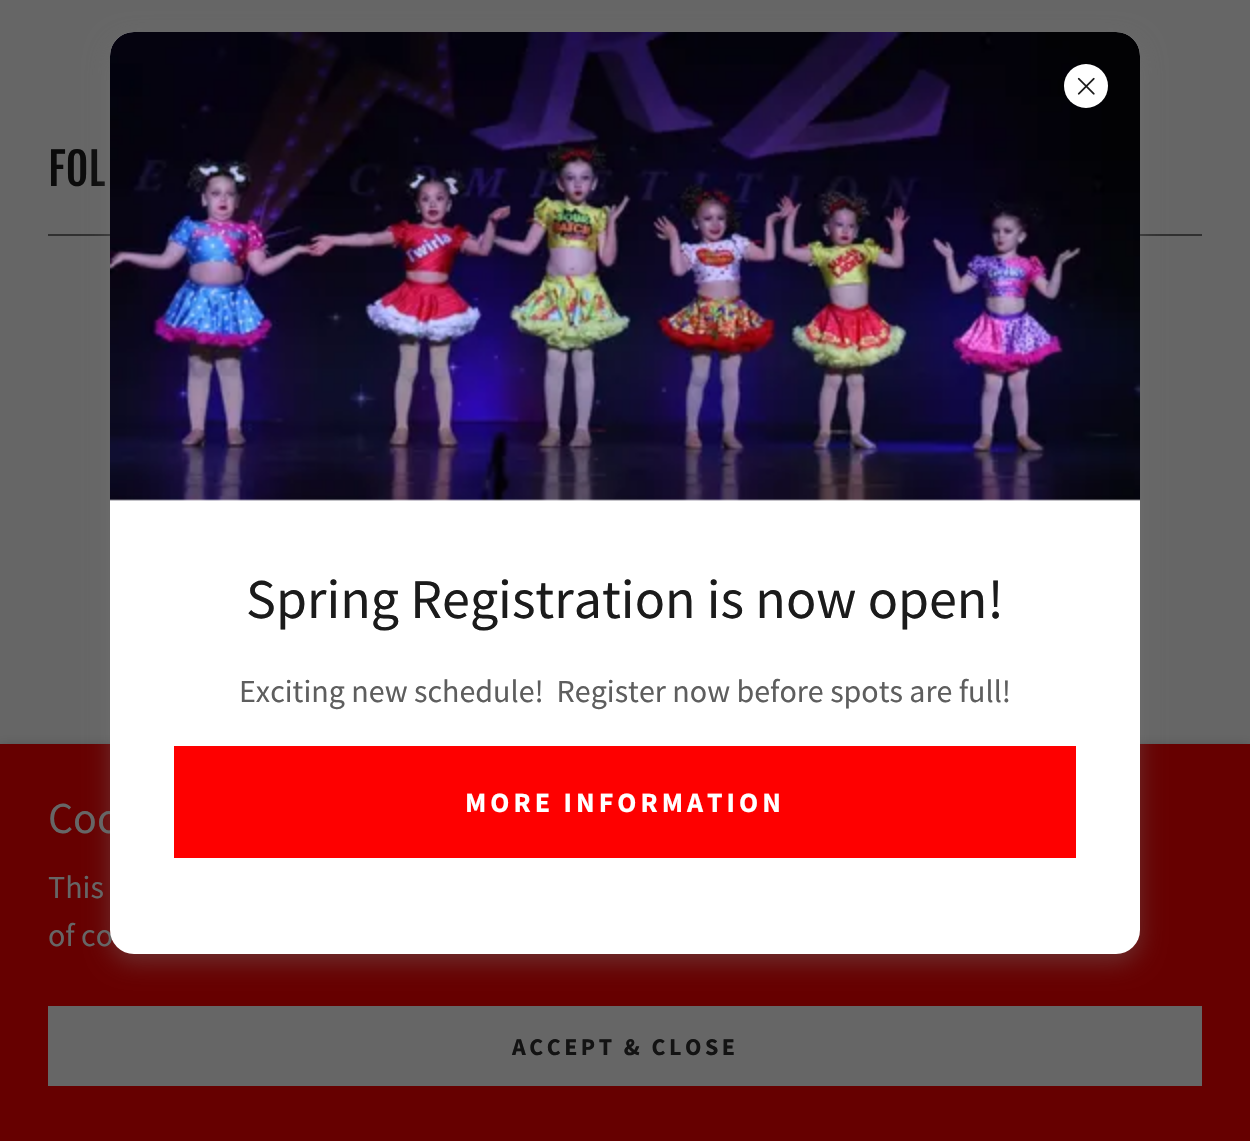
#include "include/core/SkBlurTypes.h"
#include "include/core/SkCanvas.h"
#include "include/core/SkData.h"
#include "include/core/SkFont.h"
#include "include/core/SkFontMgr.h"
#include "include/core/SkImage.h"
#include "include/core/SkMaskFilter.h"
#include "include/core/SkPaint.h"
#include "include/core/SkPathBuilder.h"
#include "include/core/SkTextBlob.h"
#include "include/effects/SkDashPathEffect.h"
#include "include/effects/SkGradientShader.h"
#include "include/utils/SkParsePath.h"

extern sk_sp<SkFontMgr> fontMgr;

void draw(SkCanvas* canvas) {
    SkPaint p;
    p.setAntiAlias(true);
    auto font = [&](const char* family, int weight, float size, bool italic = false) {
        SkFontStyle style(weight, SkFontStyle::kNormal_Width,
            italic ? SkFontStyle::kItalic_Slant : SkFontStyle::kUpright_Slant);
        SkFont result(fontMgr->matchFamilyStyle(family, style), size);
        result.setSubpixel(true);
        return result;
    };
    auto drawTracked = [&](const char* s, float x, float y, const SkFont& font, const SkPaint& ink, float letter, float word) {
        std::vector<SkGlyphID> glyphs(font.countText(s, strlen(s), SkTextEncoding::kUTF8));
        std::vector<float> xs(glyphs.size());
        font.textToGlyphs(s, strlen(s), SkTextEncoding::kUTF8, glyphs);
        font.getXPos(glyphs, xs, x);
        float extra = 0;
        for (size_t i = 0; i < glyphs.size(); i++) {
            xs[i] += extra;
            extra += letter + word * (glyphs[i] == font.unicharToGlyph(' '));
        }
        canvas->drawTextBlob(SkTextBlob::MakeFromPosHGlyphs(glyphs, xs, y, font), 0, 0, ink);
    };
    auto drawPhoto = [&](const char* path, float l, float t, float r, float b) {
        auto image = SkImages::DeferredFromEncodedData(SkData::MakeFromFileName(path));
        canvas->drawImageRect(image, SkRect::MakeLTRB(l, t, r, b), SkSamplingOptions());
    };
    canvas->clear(0xFF666666);
    auto font1 = font("Fjalla One", 400, 44);
    p.setColor(0xFF0B0B0B);
    canvas->drawString("FOL", 48, 186, font1, p);
    p.setColor(0xFF303030);
    canvas->drawRect(SkRect::MakeLTRB(48, 234, 1202, 236), p);
    p.setColor(0x4D000000);
    p.setMaskFilter(SkMaskFilter::MakeBlur(kNormal_SkBlurStyle, 6));
    canvas->drawRect(SkRect::MakeLTRB(0, 748, 1250, 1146), p);
    p.setMaskFilter(nullptr);
    p.setColor(0xFF660000);
    canvas->drawRect(SkRect::MakeLTRB(0, 744, 1250, 1141), p);
    p.setColor(0x66757575);
    p.setMaskFilter(SkMaskFilter::MakeBlur(kNormal_SkBlurStyle, 12));
    canvas->drawRoundRect(SkRect::MakeLTRB(110, 40, 1140, 962), 24, 24, p);
    p.setMaskFilter(nullptr);
    auto font2 = font("Source Sans Pro", 400, 44);
    p.setColor(0xFF666666);
    canvas->drawString("Coo", 48, 833, font2, p);
    auto font3 = font("Source Sans Pro", 400, 32);
    canvas->drawString("of co", 48, 946, font3, p);
    p.setColor(0xFFFFFFFF);
    canvas->drawRoundRect(SkRect::MakeLTRB(110, 32, 1140, 954), 24, 24, p);
    drawPhoto("media/2.png", 110, 32, 1140, 501);
    canvas->drawCircle(1086, 86, 22, p);
    drawPhoto("media/1.png", 1077, 77, 1095, 95);
    auto font4 = font("Source Sans Pro", 400, 56);
    p.setColor(0xFF1B1B1B);
    canvas->drawString("Spring Registration is now open!", 246, 618, font4, p);
    p.setColor(0xFF5E5E5E);
    canvas->drawString("Exciting new schedule!  Register now before spots are full!", 239, 702, font3, p);
    p.setColor(0xFFFE0000);
    canvas->drawRect(SkRect::MakeLTRB(174, 746, 1076, 858), p);
    auto font5 = font("Source Sans Pro", 700, 28);
    p.setColor(0xFFFFFFFF);
    drawTracked("MORE INFORMATION", 465, 812, font5, p, 4, 0);
    p.setColor(0xFF666666);
    canvas->drawString("This", 48, 898, font3, p);
    canvas->drawRect(SkRect::MakeLTRB(48, 1006, 1202, 1086), p);
    auto font6 = font("Source Sans Pro", 700, 24);
    p.setColor(0xFF131313);
    drawTracked("ACCEPT & CLOSE", 512, 1055, font6, p, 3.5f, 0);
}
